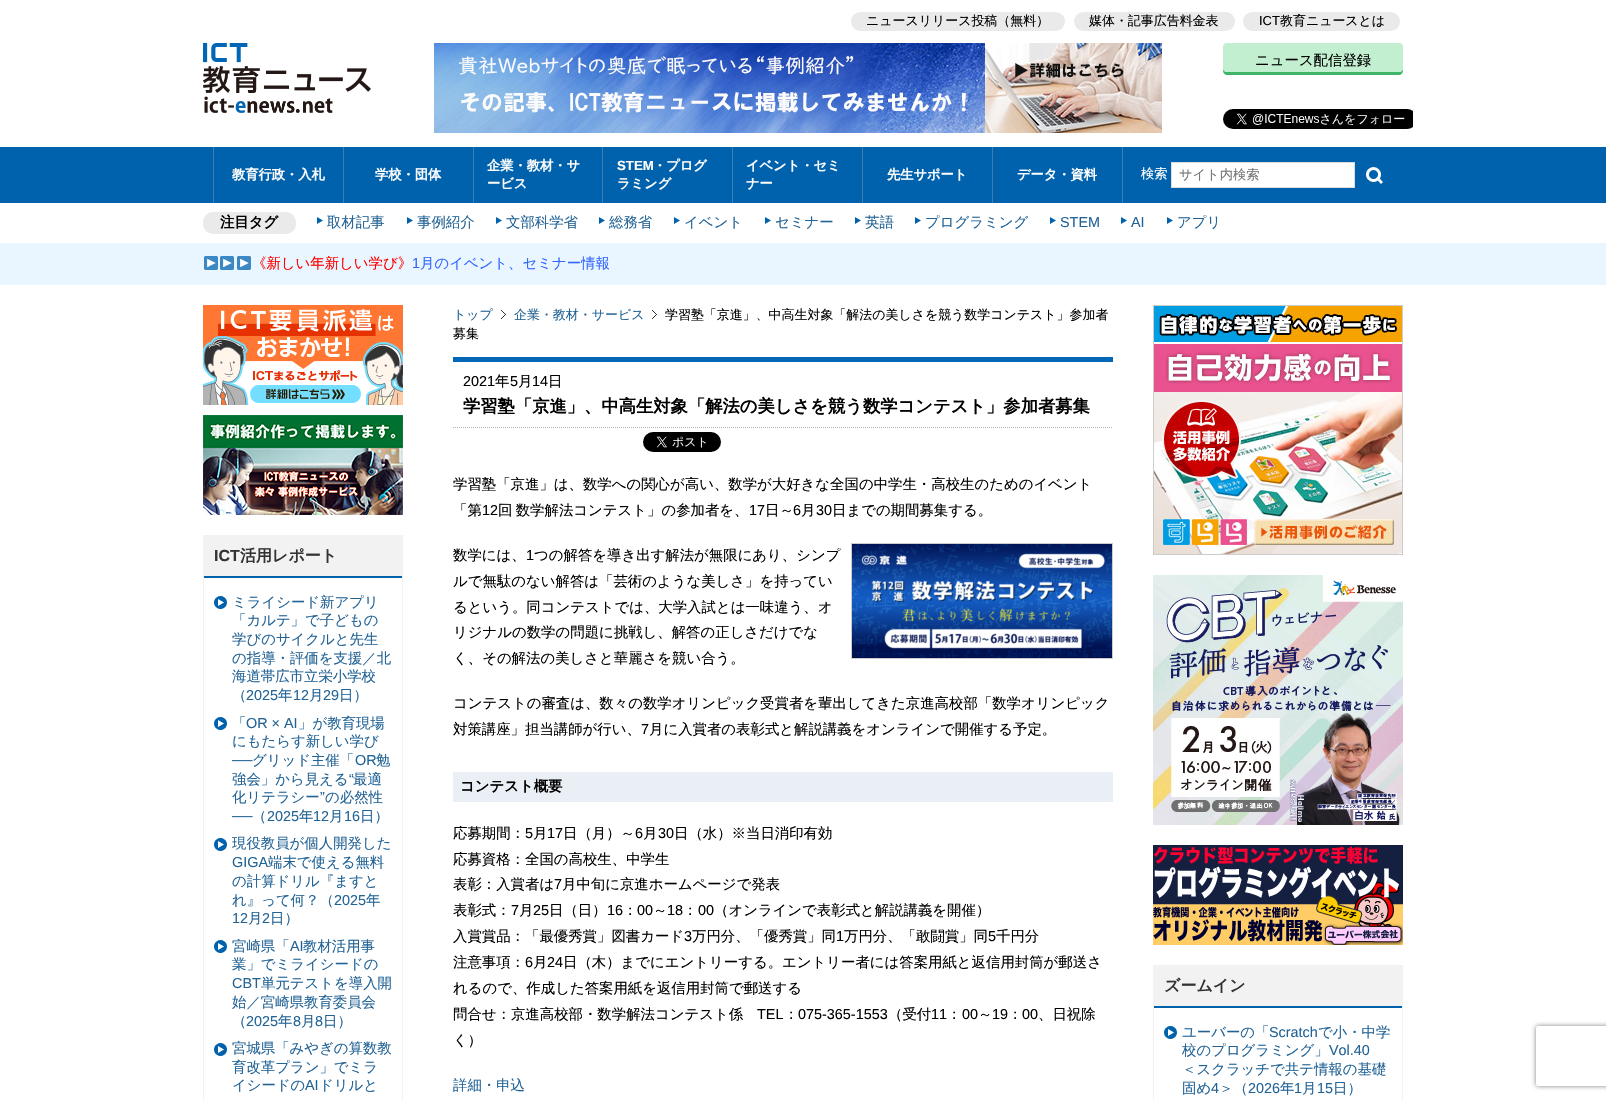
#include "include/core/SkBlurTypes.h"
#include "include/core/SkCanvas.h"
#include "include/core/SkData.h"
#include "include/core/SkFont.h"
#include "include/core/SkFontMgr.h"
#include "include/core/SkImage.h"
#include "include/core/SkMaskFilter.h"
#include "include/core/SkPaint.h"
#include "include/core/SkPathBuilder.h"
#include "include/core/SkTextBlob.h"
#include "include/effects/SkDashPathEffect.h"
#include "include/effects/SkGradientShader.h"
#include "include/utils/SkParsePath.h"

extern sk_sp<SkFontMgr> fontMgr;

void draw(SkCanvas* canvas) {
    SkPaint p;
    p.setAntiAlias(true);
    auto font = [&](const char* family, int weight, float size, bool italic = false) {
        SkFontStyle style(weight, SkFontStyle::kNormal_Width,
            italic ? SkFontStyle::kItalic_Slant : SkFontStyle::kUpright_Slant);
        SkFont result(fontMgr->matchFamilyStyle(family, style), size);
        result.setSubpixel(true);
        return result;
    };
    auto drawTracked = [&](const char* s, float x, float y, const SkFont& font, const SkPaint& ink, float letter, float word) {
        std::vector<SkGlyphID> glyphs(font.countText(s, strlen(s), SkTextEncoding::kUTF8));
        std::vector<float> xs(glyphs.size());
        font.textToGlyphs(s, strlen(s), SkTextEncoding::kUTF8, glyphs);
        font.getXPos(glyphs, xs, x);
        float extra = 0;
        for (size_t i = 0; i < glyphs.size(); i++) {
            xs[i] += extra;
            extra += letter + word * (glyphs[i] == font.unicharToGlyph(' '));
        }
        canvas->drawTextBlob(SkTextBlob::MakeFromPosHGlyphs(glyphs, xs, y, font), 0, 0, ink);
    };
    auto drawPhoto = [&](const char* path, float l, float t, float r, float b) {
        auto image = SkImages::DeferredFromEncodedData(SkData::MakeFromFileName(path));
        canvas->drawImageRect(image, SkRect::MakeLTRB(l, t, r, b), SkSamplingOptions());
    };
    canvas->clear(0xFFFFFFFF);
    drawPhoto("media/1.png", 203, 43, 371, 113);
    p.setColor(0xFFEAEAEA);
    canvas->drawRoundRect(SkRect::MakeLTRB(851, 12, 1065, 31), 9.5f, 9.5f, p);
    auto font1 = font("WenQuanYi Zen Hei", 500, 12.95f);
    p.setColor(0xFF000000);
    canvas->drawString("ニュースリリース投稿（無料）", 866, 25, font1, p);
    p.setColor(0xFFEAEAEA);
    canvas->drawRoundRect(SkRect::MakeLTRB(1074, 12, 1235, 31), 9.5f, 9.5f, p);
    p.setColor(0xFF000000);
    canvas->drawString("媒体・記事広告料金表", 1089, 25, font1, p);
    p.setColor(0xFFEAEAEA);
    canvas->drawRoundRect(SkRect::MakeLTRB(1243, 12, 1400, 31), 9.5f, 9.5f, p);
    auto font2 = font("Liberation Sans", 400, 12.95f);
    p.setColor(0xFF000000);
    canvas->drawString("ICT", 1259, 25, font2, p);
    canvas->drawString("教育ニュースとは", 1280, 25, font1, p);
    drawPhoto("media/2.png", 434, 43, 1162, 133);
    p.setColor(0xFF41B567);
    canvas->drawPath(SkPathBuilder().moveTo(1223, 68).lineTo(1223, 71).cubicTo(1223, 73, 1225, 75, 1227, 75).lineTo(1399, 75).cubicTo(1401, 75, 1403, 73, 1403, 71).lineTo(1403, 68).cubicTo(1403, 70, 1401, 72, 1399, 72).lineTo(1227, 72).cubicTo(1225, 72, 1223, 70, 1223, 68).close().detach(), p);
    p.setColor(0xFFC3EFD1);
    canvas->drawRoundRect(SkRect::MakeLTRB(1223, 43, 1403, 72), 4, 4, p);
    auto font3 = font("WenQuanYi Zen Hei", 500, 14.4f);
    p.setColor(0xFF000000);
    canvas->drawString("ニュース配信登録", 1255, 65, font3, p);
    drawPhoto("media/3.png", 1223, 109, 1413, 129);
    p.setColor(0xFF0062AD);
    canvas->drawRect(SkRect::MakeLTRB(0, 147, 1606, 203), p);
    p.setColor(0xFF407EAE);
    canvas->drawRect(SkRect::MakeLTRB(213, 147, 214, 203), p);
    auto font4 = font("WenQuanYi Zen Hei", 700, 13.25f);
    p.setColor(0xFFFFFFFF);
    canvas->drawString("教育行政・入札", 232, 179, font4, p);
    p.setColor(0xFF407EAE);
    canvas->drawRect(SkRect::MakeLTRB(343, 147, 344, 203), p);
    p.setColor(0xFFFFFFFF);
    canvas->drawString("学校・団体", 375, 179, font4, p);
    p.setColor(0xFF407EAE);
    canvas->drawRect(SkRect::MakeLTRB(473, 147, 474, 203), p);
    p.setColor(0xFFFFFFFF);
    canvas->drawString("企業・教材・サ", 487, 170, font4, p);
    canvas->drawString("ービス", 487, 188, font4, p);
    p.setColor(0xFF407EAE);
    canvas->drawRect(SkRect::MakeLTRB(602, 147, 603, 203), p);
    auto font5 = font("Liberation Sans", 700, 13.25f);
    p.setColor(0xFFFFFFFF);
    canvas->drawString("STEM", 617, 170, font5, p);
    canvas->drawString("・プログ", 653, 170, font4, p);
    canvas->drawString("ラミング", 617, 188, font4, p);
    p.setColor(0xFF407EAE);
    canvas->drawRect(SkRect::MakeLTRB(732, 147, 733, 203), p);
    p.setColor(0xFFFFFFFF);
    canvas->drawString("イベント・セミ", 746, 170, font4, p);
    canvas->drawString("ナー", 746, 188, font4, p);
    p.setColor(0xFF407EAE);
    canvas->drawRect(SkRect::MakeLTRB(862, 147, 863, 203), p);
    p.setColor(0xFFFFFFFF);
    canvas->drawString("先生サポート", 887, 179, font4, p);
    p.setColor(0xFF407EAE);
    canvas->drawRect(SkRect::MakeLTRB(992, 147, 993, 203), p);
    p.setColor(0xFFFFFFFF);
    canvas->drawString("データ・資料", 1017, 179, font4, p);
    p.setColor(0xFF407EAE);
    canvas->drawRect(SkRect::MakeLTRB(1122, 147, 1123, 203), p);
    auto font6 = font("WenQuanYi Zen Hei", 500, 13.25f);
    p.setColor(0xFFFFFFFF);
    canvas->drawString("検索", 1141, 178, font6, p);
    canvas->drawRect(SkRect::MakeLTRB(1171.5f, 162.5f, 1354.5f, 187.5f), p);
    p.setStyle(SkPaint::kStroke_Style);
    p.setStrokeWidth(1);
    p.setColor(0xFFDDDDDD);
    canvas->drawRect(SkRect::MakeLTRB(1171.5f, 162.5f, 1354.5f, 187.5f), p);
    p.setStyle(SkPaint::kFill_Style);
    p.setColor(0xFF757575);
    canvas->drawString("サイト内検索", 1179, 179, font6, p);
    drawPhoto("media/4.png", 1355, 162, 1393, 188);
    p.setColor(0xFFEAEAEA);
    canvas->drawRoundRect(SkRect::MakeLTRB(203, 212, 296, 234), 10, 10, p);
    auto font7 = font("WenQuanYi Zen Hei", 700, 14.4f);
    p.setColor(0xFF000000);
    canvas->drawString("注目タグ", 220, 227, font7, p);
    drawPhoto("media/5.png", 317, 217, 323, 224);
    p.setColor(0xFF226396);
    canvas->drawString("取材記事", 327, 227, font3, p);
    drawPhoto("media/5.png", 407, 217, 413, 224);
    canvas->drawString("事例紹介", 417, 227, font3, p);
    drawPhoto("media/5.png", 496, 217, 502, 224);
    canvas->drawString("文部科学省", 506, 227, font3, p);
    drawPhoto("media/5.png", 599, 217, 605, 224);
    canvas->drawString("総務省", 609, 227, font3, p);
    drawPhoto("media/5.png", 674, 217, 680, 224);
    canvas->drawString("イベント", 684, 227, font3, p);
    drawPhoto("media/5.png", 765, 217, 771, 224);
    canvas->drawString("セミナー", 775, 227, font3, p);
    drawPhoto("media/5.png", 855, 217, 861, 224);
    canvas->drawString("英語", 865, 227, font3, p);
    drawPhoto("media/5.png", 915, 217, 921, 224);
    canvas->drawString("プログラミング", 925, 227, font3, p);
    drawPhoto("media/5.png", 1050, 217, 1056, 224);
    auto font8 = font("Liberation Sans", 400, 14.4f);
    canvas->drawString("STEM", 1060, 227, font8, p);
    drawPhoto("media/5.png", 1121, 217, 1127, 224);
    canvas->drawString("AI", 1131, 227, font8, p);
    drawPhoto("media/5.png", 1167, 217, 1173, 224);
    canvas->drawString("アプリ", 1177, 227, font3, p);
    p.setColor(0xFFEAF6FF);
    canvas->drawRect(SkRect::MakeLTRB(0, 243, 1606, 285), p);
    drawPhoto("media/6.png", 204, 256, 218, 270);
    drawPhoto("media/6.png", 220, 256, 234, 270);
    drawPhoto("media/6.png", 237, 256, 251, 270);
    p.setColor(0xFFFF0000);
    canvas->drawString("《新しい年新しい学び》", 252, 268, font3, p);
    p.setColor(0xFF3366FF);
    canvas->drawString("1", 412, 268, font8, p);
    canvas->drawString("月のイベント、セミナー情報", 420, 268, font3, p);
    drawPhoto("media/7.png", 203, 305, 403, 405);
    drawPhoto("media/8.png", 203, 415, 403, 515);
    p.setStyle(SkPaint::kStroke_Style);
    p.setColor(0xFFF2F2F2);
    canvas->drawRect(SkRect::MakeLTRB(203.5f, 535.5f, 402.5f, 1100.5f), p);
    p.setStyle(SkPaint::kFill_Style);
    canvas->drawRect(SkRect::MakeLTRB(204, 536, 402, 576), p);
    p.setColor(0xFF0062AD);
    canvas->drawRect(SkRect::MakeLTRB(204, 576, 402, 578), p);
    auto font9 = font("Liberation Sans", 700, 16);
    p.setColor(0xFF333333);
    canvas->drawString("ICT", 214, 561, font9, p);
    auto font10 = font("WenQuanYi Zen Hei", 700, 16);
    canvas->drawString("活用レポート", 240, 561, font10, p);
    drawPhoto("media/9.png", 214, 596, 227, 609);
    p.setColor(0xFF226396);
    {
        const struct { const char* s; float x, y; } items[] = {
            {"ミライシード新アプリ", 232, 607},
            {"「カルテ」で子どもの", 232, 625},
            {"学びのサイクルと先生", 232, 644},
            {"の指導・評価を支援／北", 232, 663},
            {"海道帯広市立栄小学校", 232, 681},
            {"（", 232, 700},
        };
        for (auto [s, x, y] : items) {
            canvas->drawString(s, x, y, font3, p);
        }
    }
    canvas->drawString("2025", 246, 700, font8, p);
    canvas->drawString("年", 278, 700, font3, p);
    canvas->drawString("12", 293, 700, font8, p);
    canvas->drawString("月", 309, 700, font3, p);
    canvas->drawString("29", 323, 700, font8, p);
    canvas->drawString("日）", 339, 700, font3, p);
    drawPhoto("media/9.png", 214, 717, 227, 730);
    canvas->drawString("「", 232, 728, font3, p);
    canvas->drawString("OR × AI", 246, 728, font8, p);
    canvas->drawString("」が教育現場", 298, 728, font3, p);
    canvas->drawString("にもたらす新しい学び", 232, 746, font3, p);
    canvas->drawString("──", 232, 765, font8, p);
    canvas->drawString("グリッド主催「", 252, 765, font3, p);
    canvas->drawString("OR", 355, 765, font8, p);
    canvas->drawString("勉", 376, 765, font3, p);
    canvas->drawString("強会」から見える", 232, 784, font3, p);
    canvas->drawString("“", 349, 784, font8, p);
    canvas->drawString("最適", 353, 784, font3, p);
    canvas->drawString("化リテラシー", 232, 802, font3, p);
    canvas->drawString("”", 320, 802, font8, p);
    canvas->drawString("の必然性", 325, 802, font3, p);
    canvas->drawString("──", 232, 821, font8, p);
    canvas->drawString("（", 252, 821, font3, p);
    canvas->drawString("2025", 267, 821, font8, p);
    canvas->drawString("年", 299, 821, font3, p);
    canvas->drawString("12", 313, 821, font8, p);
    canvas->drawString("月", 329, 821, font3, p);
    canvas->drawString("16", 344, 821, font8, p);
    canvas->drawString("日）", 360, 821, font3, p);
    drawPhoto("media/9.png", 214, 838, 227, 851);
    canvas->drawString("現役教員が個人開発した", 232, 848, font3, p);
    canvas->drawString("GIGA", 232, 867, font8, p);
    {
        const struct { const char* s; float x, y; } items[] = {
            {"端末で使える無料", 268, 867},
            {"の計算ドリル『ますと", 232, 886},
            {"れ』って何？（", 232, 905},
        };
        for (auto [s, x, y] : items) {
            canvas->drawString(s, x, y, font3, p);
        }
    }
    canvas->drawString("2025", 334, 905, font8, p);
    canvas->drawString("年", 366, 905, font3, p);
    canvas->drawString("12", 232, 923, font8, p);
    canvas->drawString("月", 248, 923, font3, p);
    canvas->drawString("2", 262, 923, font8, p);
    canvas->drawString("日）", 270, 923, font3, p);
    drawPhoto("media/9.png", 214, 940, 227, 953);
    canvas->drawString("宮崎県「", 232, 951, font3, p);
    canvas->drawString("AI", 290, 951, font8, p);
    canvas->drawString("教材活用事", 303, 951, font3, p);
    canvas->drawString("業」でミライシードの", 232, 969, font3, p);
    canvas->drawString("CBT", 232, 988, font8, p);
    {
        const struct { const char* s; float x, y; } items[] = {
            {"単元テストを導入開", 261, 988},
            {"始／宮崎県教育委員会", 232, 1007},
            {"（", 232, 1026},
        };
        for (auto [s, x, y] : items) {
            canvas->drawString(s, x, y, font3, p);
        }
    }
    canvas->drawString("2025", 246, 1026, font8, p);
    canvas->drawString("年", 278, 1026, font3, p);
    canvas->drawString("8", 293, 1026, font8, p);
    canvas->drawString("月", 301, 1026, font3, p);
    canvas->drawString("8", 315, 1026, font8, p);
    canvas->drawString("日）", 323, 1026, font3, p);
    drawPhoto("media/9.png", 214, 1043, 227, 1056);
    {
        const struct { const char* s; float x, y; } items[] = {
            {"宮城県「みやぎの算数教", 232, 1053},
            {"育改革プラン」でミラ", 232, 1072},
            {"イシードの", 232, 1090},
        };
        for (auto [s, x, y] : items) {
            canvas->drawString(s, x, y, font3, p);
        }
    }
    canvas->drawString("AI", 305, 1090, font8, p);
    canvas->drawString("ドリルと", 319, 1090, font3, p);
    canvas->drawString("トップ", 453, 319, font1, p);
    drawPhoto("media/10.png", 501, 310, 506, 319);
    canvas->drawString("企業・教材・サービス", 514, 319, font1, p);
    drawPhoto("media/10.png", 652, 310, 657, 319);
    p.setColor(0xFF000000);
    canvas->drawString("学習塾「京進」、中高生対象「解法の美しさを競う数学コンテスト」参加者", 665, 319, font1, p);
    canvas->drawString("募集", 453, 338, font1, p);
    p.setColor(0xFF0066B5);
    canvas->drawRect(SkRect::MakeLTRB(453, 357, 1113, 362), p);
    p.setStyle(SkPaint::kStroke_Style);
    p.setColor(0xFFB2B2B2);
    p.setPathEffect(SkDashPathEffect::Make({{1, 1}}, 0));
    canvas->drawPath(SkPathBuilder().moveTo(453, 427.5f).lineTo(1113, 427.5f).detach(), p);
    p.setPathEffect(nullptr);
    p.setStyle(SkPaint::kFill_Style);
    p.setColor(0xFF000000);
    canvas->drawString("2021", 463, 386, font8, p);
    canvas->drawString("年", 495, 386, font3, p);
    canvas->drawString("5", 510, 386, font8, p);
    canvas->drawString("月", 518, 386, font3, p);
    canvas->drawString("14", 532, 386, font8, p);
    canvas->drawString("日", 548, 386, font3, p);
    auto font11 = font("WenQuanYi Zen Hei", 700, 17.3f);
    canvas->drawString("学習塾「京進」、中高生対象「解法の美しさを競う数学コンテスト」参加者募集", 463, 412, font11, p);
    drawPhoto("media/11.png", 643, 432, 721, 452);
    canvas->drawString("学習塾「京進」は、数学への関心が高い、数学が大好きな全国の中学生・高校生のためのイベント", 453, 489, font3, p);
    canvas->drawString("「第", 453, 515, font3, p);
    canvas->drawString("12", 482, 515, font8, p);
    drawTracked("回 数学解法コンテスト」の参加者を、", 498, 515, font3, p, 0, -1);
    canvas->drawString("17", 749, 515, font8, p);
    canvas->drawString("日～", 765, 515, font3, p);
    canvas->drawString("6", 793, 515, font8, p);
    canvas->drawString("月", 801, 515, font3, p);
    canvas->drawString("30", 816, 515, font8, p);
    canvas->drawString("日までの期間募集する。", 832, 515, font3, p);
    canvas->drawString("数学には、", 453, 560, font3, p);
    canvas->drawString("1", 526, 560, font8, p);
    canvas->drawString("つの解答を導き出す解法が無限にあり、シンプ", 534, 560, font3, p);
    p.setStyle(SkPaint::kStroke_Style);
    p.setColor(0xFFCCCCCC);
    canvas->drawRect(SkRect::MakeLTRB(851.5f, 543.5f, 1112.5f, 658.5f), p);
    drawPhoto("media/12.png", 852, 544, 1112, 658);
    p.setStyle(SkPaint::kFill_Style);
    p.setColor(0xFF000000);
    {
        const struct { const char* s; float x, y; } items[] = {
            {"ルで無駄のない解答は「芸術のような美しさ」を持ってい", 453, 586},
            {"るという。同コンテストでは、大学入試とは一味違う、オ", 453, 612},
            {"リジナルの数学の問題に挑戦し、解答の正しさだけでな", 453, 637},
            {"く、その解法の美しさと華麗さを競い合う。", 453, 663},
            {"コンテストの審査は、数々の数学オリンピック受賞者を輩出してきた京進高校部「数学オリンピック", 453, 708},
            {"対策講座」担当講師が行い、", 453, 734},
        };
        for (auto [s, x, y] : items) {
            canvas->drawString(s, x, y, font3, p);
        }
    }
    canvas->drawString("7", 641, 734, font8, p);
    canvas->drawString("月に入賞者の表彰式と解説講義をオンラインで開催する予定。", 649, 734, font3, p);
    p.setColor(0xFFE9EFF4);
    canvas->drawRect(SkRect::MakeLTRB(453, 772, 1113, 802), p);
    p.setColor(0xFF000000);
    canvas->drawString("コンテスト概要", 460, 791, font7, p);
    canvas->drawString("応募期間：", 453, 838, font3, p);
    canvas->drawString("5", 525, 838, font8, p);
    canvas->drawString("月", 533, 838, font3, p);
    canvas->drawString("17", 547, 838, font8, p);
    canvas->drawString("日（月）～", 563, 838, font3, p);
    canvas->drawString("6", 635, 838, font8, p);
    canvas->drawString("月", 643, 838, font3, p);
    canvas->drawString("30", 658, 838, font8, p);
    {
        const struct { const char* s; float x, y; } items[] = {
            {"日（水）※当日消印有効", 674, 838},
            {"応募資格：全国の高校生、中学生", 453, 864},
            {"表彰：入賞者は", 453, 889},
        };
        for (auto [s, x, y] : items) {
            canvas->drawString(s, x, y, font3, p);
        }
    }
    canvas->drawString("7", 554, 889, font8, p);
    canvas->drawString("月中旬に京進ホームページで発表", 562, 889, font3, p);
    canvas->drawString("表彰式：", 453, 915, font3, p);
    canvas->drawString("7", 511, 915, font8, p);
    canvas->drawString("月", 519, 915, font3, p);
    canvas->drawString("25", 533, 915, font8, p);
    canvas->drawString("日（日）", 549, 915, font3, p);
    canvas->drawString("16", 607, 915, font8, p);
    canvas->drawString("：", 623, 915, font3, p);
    canvas->drawString("00", 637, 915, font8, p);
    canvas->drawString("～", 653, 915, font3, p);
    canvas->drawString("18", 667, 915, font8, p);
    canvas->drawString("：", 683, 915, font3, p);
    canvas->drawString("00", 698, 915, font8, p);
    canvas->drawString("（オンラインで表彰式と解説講義を開催）", 714, 915, font3, p);
    canvas->drawString("入賞賞品：「最優秀賞」図書カード", 453, 941, font3, p);
    canvas->drawString("3", 684, 941, font8, p);
    canvas->drawString("万円分、「優秀賞」同", 692, 941, font3, p);
    canvas->drawString("1", 836, 941, font8, p);
    canvas->drawString("万円分、「敢闘賞」同", 844, 941, font3, p);
    canvas->drawString("5", 988, 941, font8, p);
    canvas->drawString("千円分", 996, 941, font3, p);
    canvas->drawString("注意事項：", 453, 967, font3, p);
    canvas->drawString("6", 525, 967, font8, p);
    canvas->drawString("月", 533, 967, font3, p);
    canvas->drawString("24", 547, 967, font8, p);
    {
        const struct { const char* s; float x, y; } items[] = {
            {"日（木）までにエントリーする。エントリー者には答案用紙と返信用封筒が郵送さ", 563, 967},
            {"れるので、作成した答案用紙を返信用封筒で郵送する", 453, 993},
            {"問合せ：京進高校部・数学解法コンテスト係", 453, 1019},
        };
        for (auto [s, x, y] : items) {
            canvas->drawString(s, x, y, font3, p);
        }
    }
    canvas->drawString("TEL", 757, 1019, font8, p);
    canvas->drawString("：", 784, 1019, font3, p);
    canvas->drawString("075-365-1553", 798, 1019, font8, p);
    canvas->drawString("（受付", 888, 1019, font3, p);
    canvas->drawString("11", 931, 1019, font8, p);
    canvas->drawString("：", 947, 1019, font3, p);
    canvas->drawString("00", 962, 1019, font8, p);
    canvas->drawString("～", 978, 1019, font3, p);
    canvas->drawString("19", 992, 1019, font8, p);
    canvas->drawString("：", 1008, 1019, font3, p);
    canvas->drawString("00", 1022, 1019, font8, p);
    canvas->drawString("、日祝除", 1038, 1019, font3, p);
    canvas->drawString("く）", 453, 1045, font3, p);
    p.setColor(0xFF226396);
    canvas->drawString("詳細・申込", 453, 1090, font3, p);
    drawPhoto("media/13.png", 1153, 305, 1403, 555);
    drawPhoto("media/14.png", 1153, 575, 1403, 825);
    drawPhoto("media/15.png", 1153, 845, 1403, 945);
    p.setStyle(SkPaint::kStroke_Style);
    p.setColor(0xFFF2F2F2);
    canvas->drawRect(SkRect::MakeLTRB(1153.5f, 965.5f, 1402.5f, 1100.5f), p);
    p.setStyle(SkPaint::kFill_Style);
    canvas->drawRect(SkRect::MakeLTRB(1154, 966, 1402, 1006), p);
    p.setColor(0xFF0062AD);
    canvas->drawRect(SkRect::MakeLTRB(1154, 1006, 1402, 1008), p);
    p.setColor(0xFF333333);
    canvas->drawString("ズームイン", 1164, 991, font10, p);
    drawPhoto("media/9.png", 1164, 1026, 1177, 1039);
    p.setColor(0xFF226396);
    canvas->drawString("ユーバーの「", 1182, 1037, font3, p);
    canvas->drawString("Scratch", 1269, 1037, font8, p);
    canvas->drawString("で小・中学", 1318, 1037, font3, p);
    canvas->drawString("校のプログラミング」", 1182, 1055, font3, p);
    canvas->drawString("Vol.40", 1329, 1055, font8, p);
    canvas->drawString("＜スクラッチで共テ情報の基礎", 1182, 1074, font3, p);
    canvas->drawString("固め", 1182, 1093, font3, p);
    canvas->drawString("4", 1211, 1093, font8, p);
    canvas->drawString("＞（", 1219, 1093, font3, p);
    canvas->drawString("2026", 1248, 1093, font8, p);
    canvas->drawString("年", 1280, 1093, font3, p);
    canvas->drawString("1", 1294, 1093, font8, p);
    canvas->drawString("月", 1302, 1093, font3, p);
    canvas->drawString("15", 1317, 1093, font8, p);
    canvas->drawString("日）", 1333, 1093, font3, p);
    canvas->save();
    canvas->clipPath(SkPathBuilder(SkPathFillType::kEvenOdd).moveTo(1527, 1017).lineTo(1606, 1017).lineTo(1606, 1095).lineTo(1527, 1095).close().moveTo(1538, 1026).lineTo(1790, 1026).cubicTo(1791, 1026, 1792, 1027, 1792, 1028).lineTo(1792, 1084).cubicTo(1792, 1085, 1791, 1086, 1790, 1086).lineTo(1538, 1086).cubicTo(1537, 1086, 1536, 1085, 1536, 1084).lineTo(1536, 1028).cubicTo(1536, 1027, 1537, 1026, 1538, 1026).close().detach(), true);
    p.setColor(0xFF808080);
    p.setMaskFilter(SkMaskFilter::MakeBlur(kNormal_SkBlurStyle, 2.5f));
    canvas->drawRoundRect(SkRect::MakeLTRB(1536, 1026, 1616, 1086), 2, 2, p);
    p.setMaskFilter(nullptr);
    canvas->restore();
}
